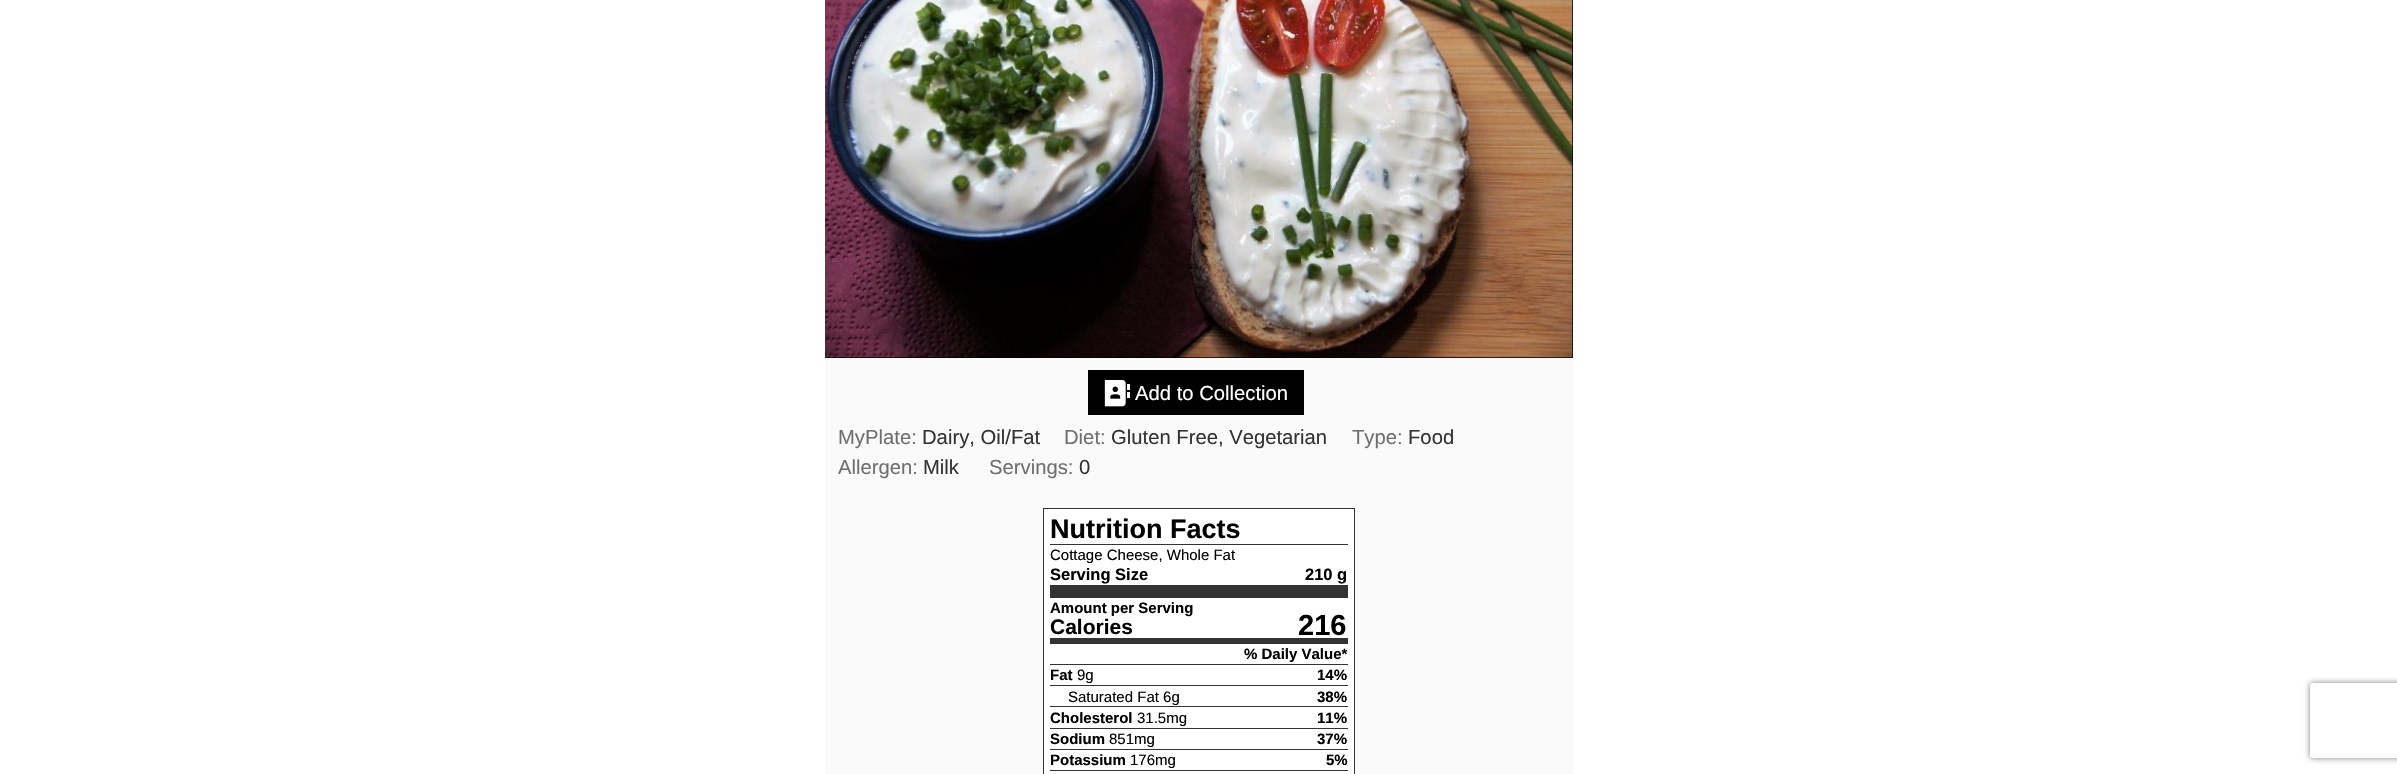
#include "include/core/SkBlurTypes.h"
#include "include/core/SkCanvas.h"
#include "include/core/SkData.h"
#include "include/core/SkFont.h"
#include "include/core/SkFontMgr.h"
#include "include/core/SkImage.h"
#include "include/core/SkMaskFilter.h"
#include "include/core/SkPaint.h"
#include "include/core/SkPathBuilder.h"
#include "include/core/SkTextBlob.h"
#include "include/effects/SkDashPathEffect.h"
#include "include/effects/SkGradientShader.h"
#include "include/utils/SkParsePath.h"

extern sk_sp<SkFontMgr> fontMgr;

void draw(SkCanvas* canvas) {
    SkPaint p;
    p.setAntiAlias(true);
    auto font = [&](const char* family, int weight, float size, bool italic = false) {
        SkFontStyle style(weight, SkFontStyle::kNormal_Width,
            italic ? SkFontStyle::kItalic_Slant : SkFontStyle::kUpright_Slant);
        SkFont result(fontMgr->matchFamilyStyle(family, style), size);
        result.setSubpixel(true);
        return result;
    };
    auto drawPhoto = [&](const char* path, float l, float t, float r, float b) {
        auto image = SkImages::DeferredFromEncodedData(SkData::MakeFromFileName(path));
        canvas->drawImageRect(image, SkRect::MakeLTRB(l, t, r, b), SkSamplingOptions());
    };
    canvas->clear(0xFFFFFFFF);
    p.setColor(0xFFFAFAFA);
    canvas->drawRect(SkRect::MakeLTRB(825, 358, 1573, 774), p);
    p.setColor(0xFF000000);
    canvas->drawRect(SkRect::MakeLTRB(825, 0, 1573, 358), p);
    drawPhoto("media/1.png", 825, 0, 1573, 358);
    canvas->drawRect(SkRect::MakeLTRB(1088, 370, 1304, 415), p);
    drawPhoto("media/2.png", 1104, 380, 1130, 407);
    auto font1 = font("Liberation Sans", 400, 20.25f);
    p.setColor(0xFFFFFFFF);
    canvas->drawString("Add to Collection", 1135, 400, font1, p);
    p.setColor(0xFF6F6F6F);
    canvas->drawString("MyPlate:", 838, 444, font1, p);
    p.setColor(0xFF333333);
    canvas->drawString("Dairy, Oil/Fat", 922, 444, font1, p);
    p.setColor(0xFF6F6F6F);
    canvas->drawString("Diet:", 1064, 444, font1, p);
    p.setColor(0xFF333333);
    canvas->drawString("Gluten Free, Vegetarian", 1111, 444, font1, p);
    p.setColor(0xFF6F6F6F);
    canvas->drawString("Type:", 1352, 444, font1, p);
    p.setColor(0xFF333333);
    canvas->drawString("Food", 1408, 444, font1, p);
    p.setColor(0xFF6F6F6F);
    canvas->drawString("Allergen:", 838, 474, font1, p);
    p.setColor(0xFF333333);
    canvas->drawString("Milk", 923, 474, font1, p);
    p.setColor(0xFF6F6F6F);
    canvas->drawString("Servings:", 989, 474, font1, p);
    p.setColor(0xFF333333);
    canvas->drawString("0", 1079, 474, font1, p);
    p.setColor(0xFFFFFFFF);
    canvas->drawRect(SkRect::MakeLTRB(1043.5f, 508.5f, 1354.5f, 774.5f), p);
    p.setStyle(SkPaint::kStroke_Style);
    p.setStrokeWidth(1);
    p.setColor(0xFF333333);
    canvas->drawRect(SkRect::MakeLTRB(1043.5f, 508.5f, 1354.5f, 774.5f), p);
    auto font2 = font("Liberation Sans", 700, 27);
    p.setStyle(SkPaint::kFill_Style);
    p.setColor(0xFF000000);
    canvas->drawString("Nutrition Facts", 1050, 538, font2, p);
    p.setColor(0xFF333333);
    canvas->drawRect(SkRect::MakeLTRB(1050, 544, 1348, 545), p);
    auto font3 = font("Liberation Sans", 400, 15);
    p.setColor(0xFF000000);
    canvas->drawString("Cottage Cheese, Whole Fat", 1050, 560, font3, p);
    auto font4 = font("Liberation Sans", 700, 16.5f);
    canvas->drawString("Serving Size", 1050, 580, font4, p);
    canvas->drawString("210 g", 1305, 580, font4, p);
    p.setColor(0xFF333333);
    canvas->drawRect(SkRect::MakeLTRB(1050, 585, 1348, 598), p);
    auto font5 = font("Liberation Sans", 700, 15);
    p.setColor(0xFF000000);
    canvas->drawString("Amount per Serving", 1050, 613, font5, p);
    auto font6 = font("Liberation Sans", 700, 21);
    canvas->drawString("Calories", 1050, 634, font6, p);
    auto font7 = font("Liberation Sans", 700, 29);
    canvas->drawString("216", 1298, 635, font7, p);
    p.setColor(0xFF333333);
    canvas->drawRect(SkRect::MakeLTRB(1050, 638, 1348, 644), p);
    p.setColor(0xFF000000);
    canvas->drawString("% Daily Value*", 1244, 659, font5, p);
    p.setColor(0xFF333333);
    canvas->drawRect(SkRect::MakeLTRB(1050, 664, 1348, 665), p);
    p.setColor(0xFF000000);
    canvas->drawString("Fat", 1050, 680, font5, p);
    canvas->drawString("9g", 1077, 680, font3, p);
    canvas->drawString("14%", 1317, 680, font5, p);
    p.setColor(0xFF333333);
    canvas->drawRect(SkRect::MakeLTRB(1050, 685, 1348, 686), p);
    p.setColor(0xFF000000);
    canvas->drawString("Saturated Fat 6g", 1068, 702, font3, p);
    canvas->drawString("38%", 1317, 702, font5, p);
    p.setColor(0xFF333333);
    canvas->drawRect(SkRect::MakeLTRB(1050, 706, 1348, 707), p);
    p.setColor(0xFF000000);
    canvas->drawString("Cholesterol", 1050, 723, font5, p);
    canvas->drawString("31.5mg", 1137, 723, font3, p);
    canvas->drawString("11%", 1317, 723, font5, p);
    p.setColor(0xFF333333);
    canvas->drawRect(SkRect::MakeLTRB(1050, 728, 1348, 729), p);
    p.setColor(0xFF000000);
    canvas->drawString("Sodium", 1050, 744, font5, p);
    canvas->drawString("851mg", 1109, 744, font3, p);
    canvas->drawString("37%", 1317, 744, font5, p);
    p.setColor(0xFF333333);
    canvas->drawRect(SkRect::MakeLTRB(1050, 749, 1348, 750), p);
    p.setColor(0xFF000000);
    canvas->drawString("Potassium", 1050, 765, font5, p);
    canvas->drawString("176mg", 1130, 765, font3, p);
    canvas->drawString("5%", 1326, 765, font5, p);
    p.setColor(0xFF333333);
    canvas->drawRect(SkRect::MakeLTRB(1050, 770, 1348, 771), p);
    canvas->save();
    canvas->clipPath(SkPathBuilder(SkPathFillType::kEvenOdd).moveTo(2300, 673).lineTo(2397, 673).lineTo(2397, 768).lineTo(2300, 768).close().moveTo(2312.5f, 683).lineTo(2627.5f, 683).cubicTo(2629, 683, 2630, 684, 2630, 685.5f).lineTo(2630, 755.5f).cubicTo(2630, 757, 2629, 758, 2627.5f, 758).lineTo(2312.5f, 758).cubicTo(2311, 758, 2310, 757, 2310, 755.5f).lineTo(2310, 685.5f).cubicTo(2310, 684, 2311, 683, 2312.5f, 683).close().detach(), true);
    p.setColor(0xFF808080);
    p.setMaskFilter(SkMaskFilter::MakeBlur(kNormal_SkBlurStyle, 3));
    canvas->drawRoundRect(SkRect::MakeLTRB(2310, 683, 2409, 758), 2.5f, 2.5f, p);
    p.setMaskFilter(nullptr);
    canvas->restore();
}
